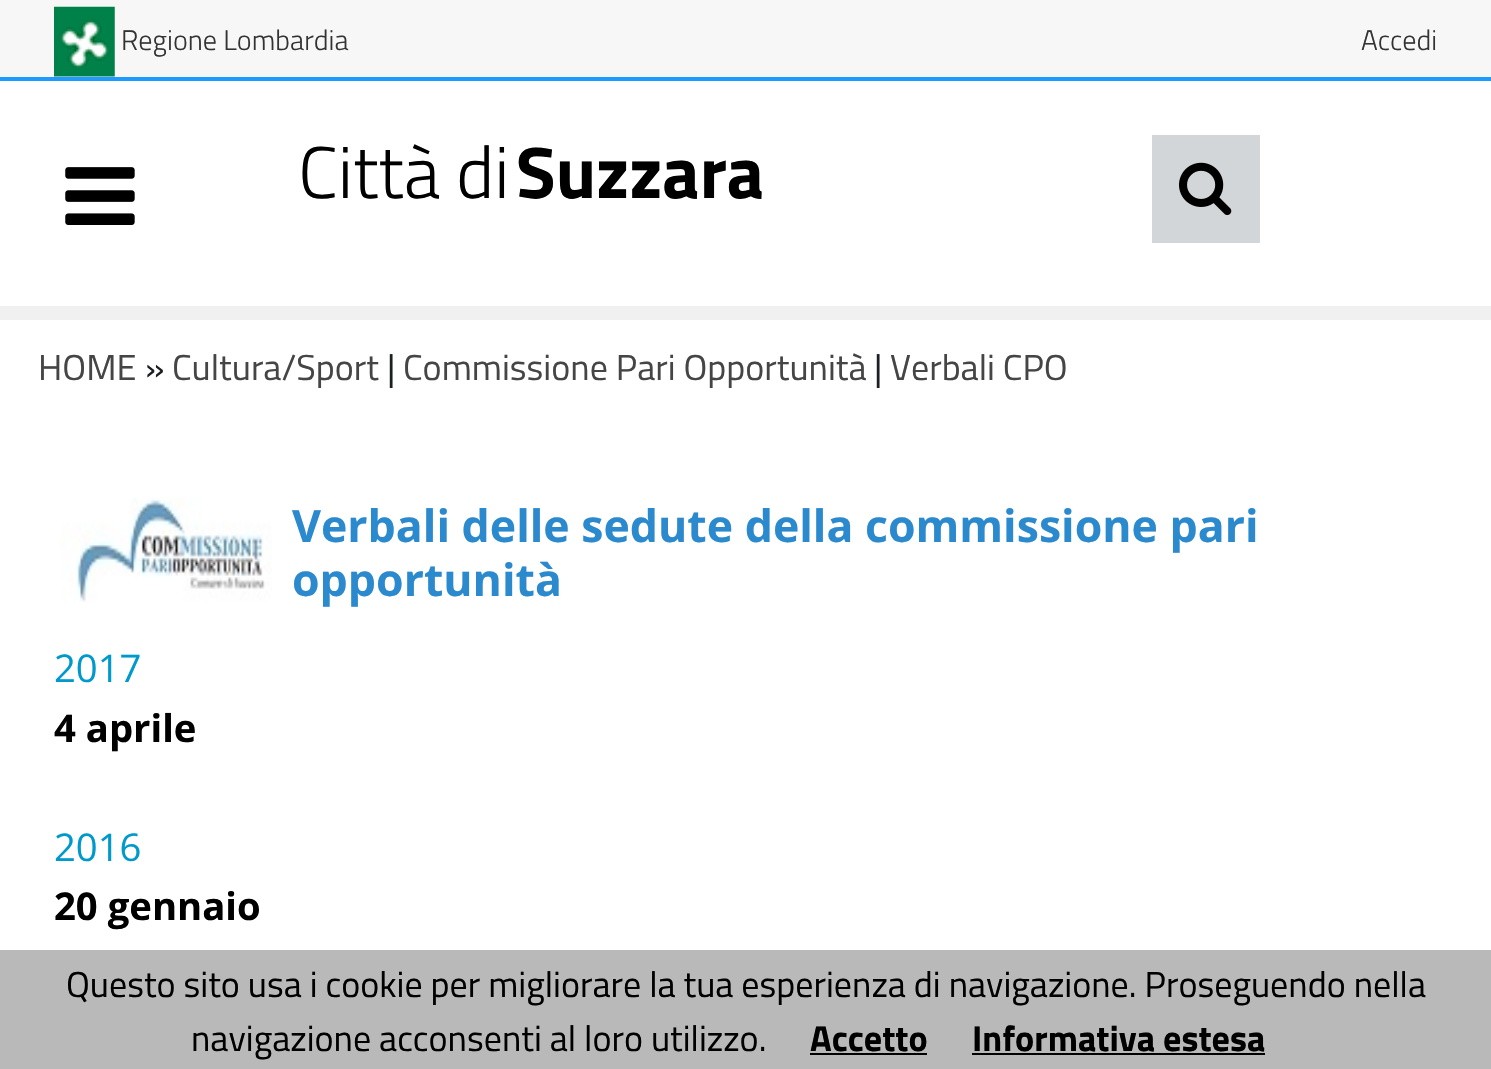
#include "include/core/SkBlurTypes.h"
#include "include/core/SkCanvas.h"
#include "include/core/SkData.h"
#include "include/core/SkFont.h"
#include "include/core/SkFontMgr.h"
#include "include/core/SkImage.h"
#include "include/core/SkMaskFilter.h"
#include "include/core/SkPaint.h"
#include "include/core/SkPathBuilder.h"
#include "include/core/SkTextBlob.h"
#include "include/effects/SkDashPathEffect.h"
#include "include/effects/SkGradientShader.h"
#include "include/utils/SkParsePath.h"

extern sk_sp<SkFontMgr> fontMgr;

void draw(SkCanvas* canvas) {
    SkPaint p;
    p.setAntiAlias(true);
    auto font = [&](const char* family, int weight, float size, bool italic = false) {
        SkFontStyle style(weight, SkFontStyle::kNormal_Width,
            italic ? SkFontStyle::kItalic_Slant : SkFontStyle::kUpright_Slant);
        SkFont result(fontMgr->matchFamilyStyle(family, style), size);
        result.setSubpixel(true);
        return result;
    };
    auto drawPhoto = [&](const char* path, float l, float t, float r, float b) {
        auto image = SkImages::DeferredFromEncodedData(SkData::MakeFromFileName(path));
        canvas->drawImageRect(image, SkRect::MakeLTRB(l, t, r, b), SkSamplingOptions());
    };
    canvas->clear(0xFFF0F0F0);
    p.setColor(0xFFF7F7F7);
    canvas->drawRect(SkRect::MakeLTRB(0, 0, 1491, 77), p);
    p.setColor(0xFF1F9AFF);
    canvas->drawRect(SkRect::MakeLTRB(0, 77, 1491, 81), p);
    drawPhoto("media/1.png", 54, 6, 115, 77);
    auto font1 = font("Titillium Web", 300, 28.25f);
    p.setColor(0xFF333333);
    canvas->drawString("Regione Lombardia", 121, 50, font1, p);
    canvas->drawString("Accedi", 1361, 50, font1, p);
    p.setColor(0xFFFFFFFF);
    canvas->drawRect(SkRect::MakeLTRB(0, 81, 1491, 306), p);
    drawPhoto("media/2.png", 65, 167, 135, 225);
    auto font2 = font("Titillium Web", 300, 73);
    p.setColor(0xFF000000);
    canvas->drawString("Città di", 298, 198, font2, p);
    auto font3 = font("Titillium Web", 700, 73);
    canvas->drawString("Suzzara", 516, 198, font3, p);
    p.setColor(0xFFD3D6D8);
    canvas->drawRect(SkRect::MakeLTRB(1152, 135, 1260, 243), p);
    drawPhoto("media/3.png", 1179, 162, 1232, 215);
    p.setColor(0xFFFFFFFF);
    canvas->drawRect(SkRect::MakeLTRB(0, 320, 1491, 950), p);
    auto font4 = font("Titillium Web", 400, 36.05f);
    p.setColor(0xFF454545);
    canvas->drawString("HOME", 38, 380, font4, p);
    p.setColor(0xFF1C2024);
    canvas->drawString("»", 145, 380, font4, p);
    p.setColor(0xFF454545);
    canvas->drawString("Cultura/Sport", 172, 380, font4, p);
    p.setColor(0xFF1C2024);
    canvas->drawString("|", 387, 380, font4, p);
    p.setColor(0xFF454545);
    canvas->drawString("Commissione Pari Opportunità", 403, 380, font4, p);
    p.setColor(0xFF1C2024);
    canvas->drawString("|", 874, 380, font4, p);
    p.setColor(0xFF454545);
    canvas->drawString("Verbali CPO", 890, 380, font4, p);
    drawPhoto("media/4.png", 61, 497, 272, 603);
    auto font5 = font("Noto Sans", 700, 44.6f);
    p.setColor(0xFF2B89CE);
    canvas->drawString("V", 292, 542, font5, p);
    auto font6 = font("Open Sans", 700, 44.6f);
    canvas->drawString("erbali delle sedute della commissione pari", 321, 542, font6, p);
    canvas->drawString("opportunità", 292, 596, font6, p);
    auto font7 = font("Open Sans", 400, 38.25f);
    p.setColor(0xFF0099CC);
    canvas->drawString("2017", 54, 682, font7, p);
    auto font8 = font("Open Sans", 700, 38.25f);
    p.setColor(0xFF000000);
    canvas->drawString("4 aprile", 54, 742, font8, p);
    p.setColor(0xFF0099CC);
    canvas->drawString("2016", 54, 861, font7, p);
    p.setColor(0xFF000000);
    canvas->drawString("20 gennaio", 54, 920, font8, p);
    p.setColor(0xFFBAB9B9);
    canvas->drawRect(SkRect::MakeLTRB(0, 950, 1491, 1069), p);
    p.setColor(0xFF000000);
    canvas->drawString("Questo sito usa i cookie per migliorare la tua esperienza di navigazione. Proseguendo nella", 66, 997, font4, p);
    canvas->drawString("navigazione acconsenti al loro utilizzo.", 191, 1051, font4, p);
    auto font9 = font("Titillium Web", 700, 36.05f);
    canvas->drawString("Accetto", 810, 1051, font9, p);
    canvas->drawRect(SkRect::MakeLTRB(810, 1053, 927, 1055), p);
    canvas->drawString("Informativa estesa", 972, 1051, font9, p);
    canvas->drawRect(SkRect::MakeLTRB(972, 1053, 1265, 1055), p);
}
